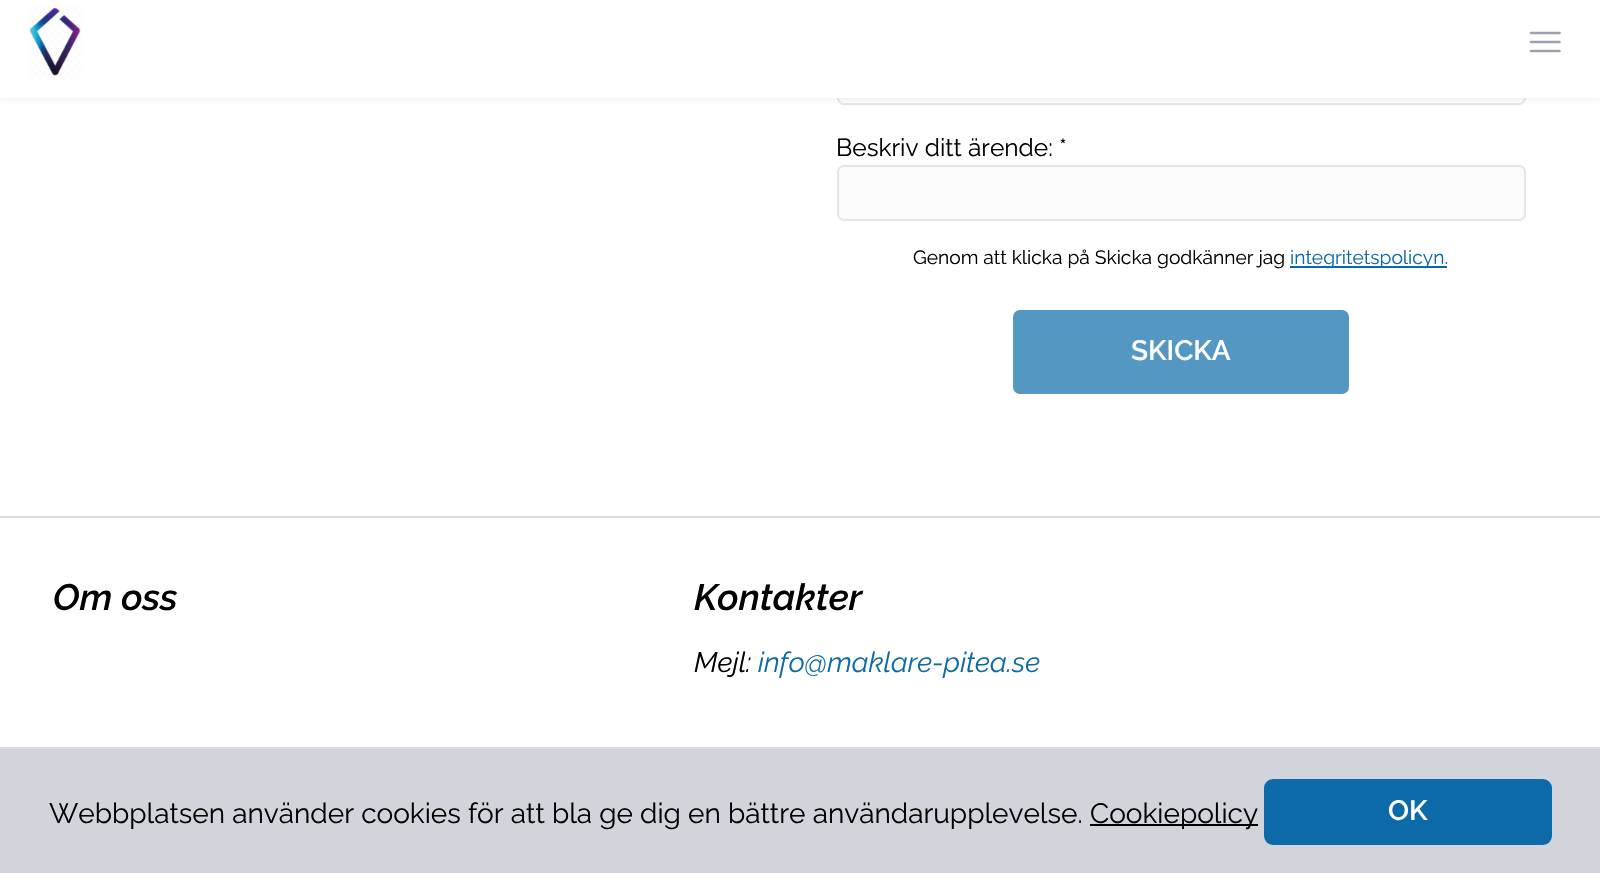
#include "include/core/SkBlurTypes.h"
#include "include/core/SkCanvas.h"
#include "include/core/SkData.h"
#include "include/core/SkFont.h"
#include "include/core/SkFontMgr.h"
#include "include/core/SkImage.h"
#include "include/core/SkMaskFilter.h"
#include "include/core/SkPaint.h"
#include "include/core/SkPathBuilder.h"
#include "include/core/SkTextBlob.h"
#include "include/effects/SkDashPathEffect.h"
#include "include/effects/SkGradientShader.h"
#include "include/utils/SkParsePath.h"

extern sk_sp<SkFontMgr> fontMgr;

void draw(SkCanvas* canvas) {
    SkPaint p;
    p.setAntiAlias(true);
    auto font = [&](const char* family, int weight, float size, bool italic = false) {
        SkFontStyle style(weight, SkFontStyle::kNormal_Width,
            italic ? SkFontStyle::kItalic_Slant : SkFontStyle::kUpright_Slant);
        SkFont result(fontMgr->matchFamilyStyle(family, style), size);
        result.setSubpixel(true);
        return result;
    };
    auto drawPhoto = [&](const char* path, float l, float t, float r, float b) {
        auto image = SkImages::DeferredFromEncodedData(SkData::MakeFromFileName(path));
        canvas->drawImageRect(image, SkRect::MakeLTRB(l, t, r, b), SkSamplingOptions());
    };
    canvas->clear(0xFFFFFFFF);
    p.setColor(0xFFFCFCFC);
    canvas->drawRoundRect(SkRect::MakeLTRB(838, 50, 1525, 104), 6, 6, p);
    p.setStyle(SkPaint::kStroke_Style);
    p.setStrokeWidth(2);
    p.setColor(0xFFE6E6E6);
    canvas->drawRoundRect(SkRect::MakeLTRB(838, 50, 1525, 104), 6, 6, p);
    p.setStyle(SkPaint::kFill_Style);
    p.setColor(0x0D000000);
    p.setMaskFilter(SkMaskFilter::MakeBlur(kNormal_SkBlurStyle, 2));
    canvas->drawRect(SkRect::MakeLTRB(0, 2, 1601, 100), p);
    p.setMaskFilter(nullptr);
    p.setColor(0xFFFFFFFF);
    canvas->drawRect(SkRect::MakeLTRB(0, 0, 1600, 98), p);
    drawPhoto("media/1.png", 29, 6, 82, 78);
    p.setStyle(SkPaint::kStroke_Style);
    p.setStrokeWidth(2.6f);
    p.setStrokeCap(SkPaint::kRound_Cap);
    p.setStrokeJoin(SkPaint::kRound_Join);
    p.setColor(0xFF9CA3AF);
    canvas->drawPath(SkPathBuilder().moveTo(1531, 33).lineTo(1559.5f, 33).moveTo(1531, 42).lineTo(1559.5f, 42).moveTo(1531, 51).lineTo(1559.5f, 51).detach(), p);
    auto font1 = font("Raleway", 400, 24.5f);
    p.setStyle(SkPaint::kFill_Style);
    p.setColor(0xFF000000);
    canvas->drawString("Beskriv ditt ärende: *", 836, 156, font1, p);
    p.setColor(0xFFFCFCFC);
    canvas->drawRoundRect(SkRect::MakeLTRB(838, 166, 1525, 220), 6, 6, p);
    p.setStyle(SkPaint::kStroke_Style);
    p.setStrokeWidth(2);
    p.setStrokeCap(SkPaint::kButt_Cap);
    p.setStrokeJoin(SkPaint::kMiter_Join);
    p.setColor(0xFFE6E6E6);
    canvas->drawRoundRect(SkRect::MakeLTRB(838, 166, 1525, 220), 6, 6, p);
    auto font2 = font("Raleway", 400, 19.25f);
    p.setStyle(SkPaint::kFill_Style);
    p.setColor(0xFF000000);
    canvas->drawString("Genom att klicka på Skicka godkänner jag", 913, 264, font2, p);
    p.setColor(0xFF0C6AA9);
    canvas->drawRect(SkRect::MakeLTRB(1290, 266, 1447, 268), p);
    canvas->drawString("integritetspolicyn.", 1290, 264, font2, p);
    p.setColor(0xFF5597C3);
    canvas->drawRoundRect(SkRect::MakeLTRB(1013, 310, 1349, 394), 7, 7, p);
    auto font3 = font("Raleway", 600, 28);
    p.setColor(0xFFFFFFFF);
    canvas->drawString("SKICKA", 1131, 360, font3, p);
    p.setColor(0xFFDDDDDD);
    canvas->drawRect(SkRect::MakeLTRB(0, 516, 1600, 518), p);
    canvas->drawRect(SkRect::MakeLTRB(0, 747, 1600, 749), p);
    auto font4 = font("Raleway", 600, 36.75f, true);
    p.setColor(0xFF000000);
    canvas->drawString("Om oss", 53, 610, font4, p);
    canvas->drawString("Kontakter", 694, 610, font4, p);
    auto font5 = font("Raleway", 400, 28, true);
    canvas->drawString("Mejl:", 694, 672, font5, p);
    p.setColor(0xFF0C6AA9);
    canvas->drawString("info@maklare-pitea.se", 758, 672, font5, p);
    p.setColor(0xFFD1D5DB);
    canvas->drawRect(SkRect::MakeLTRB(0, 749, 1600, 873), p);
    auto font6 = font("Raleway", 400, 28);
    p.setColor(0xFF000000);
    canvas->drawString("Webbplatsen använder cookies för att bla ge dig en bättre användarupplevelse.", 49, 823, font6, p);
    canvas->drawRect(SkRect::MakeLTRB(1090, 824, 1258, 826), p);
    canvas->drawString("Cookiepolicy", 1090, 823, font6, p);
    p.setColor(0xFF0C6AA9);
    canvas->drawRoundRect(SkRect::MakeLTRB(1264, 779, 1552, 845), 9, 9, p);
    p.setColor(0xFFFFFFFF);
    canvas->drawString("OK", 1388, 820, font3, p);
}
